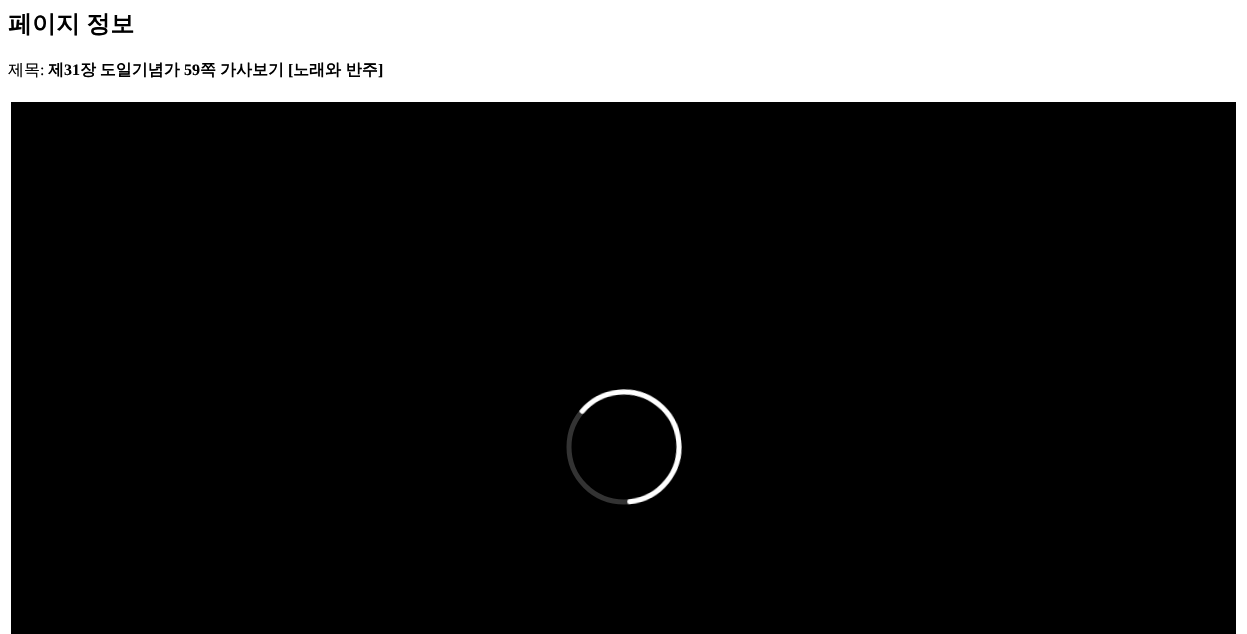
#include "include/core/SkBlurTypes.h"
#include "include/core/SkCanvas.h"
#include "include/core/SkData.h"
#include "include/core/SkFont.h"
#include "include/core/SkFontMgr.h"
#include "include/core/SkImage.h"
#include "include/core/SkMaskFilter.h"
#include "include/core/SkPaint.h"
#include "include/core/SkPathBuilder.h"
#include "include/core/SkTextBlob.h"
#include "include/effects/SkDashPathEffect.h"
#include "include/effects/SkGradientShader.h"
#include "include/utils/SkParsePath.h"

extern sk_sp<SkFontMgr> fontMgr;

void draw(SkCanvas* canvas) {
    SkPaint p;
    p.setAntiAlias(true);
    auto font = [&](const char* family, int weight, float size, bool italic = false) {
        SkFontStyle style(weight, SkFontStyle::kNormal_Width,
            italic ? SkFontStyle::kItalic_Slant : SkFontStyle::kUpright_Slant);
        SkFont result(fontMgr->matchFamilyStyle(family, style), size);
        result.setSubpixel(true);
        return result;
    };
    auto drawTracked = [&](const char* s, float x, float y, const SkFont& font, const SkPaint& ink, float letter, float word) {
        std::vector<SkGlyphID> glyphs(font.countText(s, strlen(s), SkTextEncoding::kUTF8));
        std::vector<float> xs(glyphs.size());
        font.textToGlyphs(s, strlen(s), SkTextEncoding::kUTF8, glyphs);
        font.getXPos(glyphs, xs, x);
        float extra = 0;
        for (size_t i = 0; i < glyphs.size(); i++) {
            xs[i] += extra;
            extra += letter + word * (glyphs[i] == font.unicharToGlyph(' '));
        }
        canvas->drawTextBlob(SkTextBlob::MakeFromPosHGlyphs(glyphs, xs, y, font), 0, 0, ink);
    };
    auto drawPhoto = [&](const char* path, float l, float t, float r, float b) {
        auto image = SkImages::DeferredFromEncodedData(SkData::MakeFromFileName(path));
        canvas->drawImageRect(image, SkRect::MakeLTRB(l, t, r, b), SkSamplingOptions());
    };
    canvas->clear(0xFFFFFFFF);
    auto font1 = font("WenQuanYi Zen Hei", 700, 24);
    p.setColor(0xFF000000);
    drawTracked("페이지 정보", 8, 32, font1, p, 0, -1);
    auto font2 = font("WenQuanYi Zen Hei", 500, 16);
    canvas->drawString("제목", 8, 75, font2, p);
    auto font3 = font("Liberation Serif", 400, 16);
    canvas->drawString(":", 40, 75, font3, p);
    auto font4 = font("WenQuanYi Zen Hei", 700, 16);
    canvas->drawString("제", 48, 75, font4, p);
    auto font5 = font("Liberation Serif", 700, 16);
    canvas->drawString("31", 64, 75, font5, p);
    drawTracked("장 도일기념가", 80, 75, font4, p, 0, -1);
    canvas->drawString("59", 184, 75, font5, p);
    canvas->drawString("쪽", 200, 75, font4, p);
    canvas->drawString("가사보기", 220, 75, font4, p);
    canvas->drawString("[", 288, 75, font5, p);
    canvas->drawString("노래와 반주", 293, 75, font4, p);
    canvas->drawString("]", 378, 75, font5, p);
    drawPhoto("media/1.png", 11, 102, 1236, 634);
}
